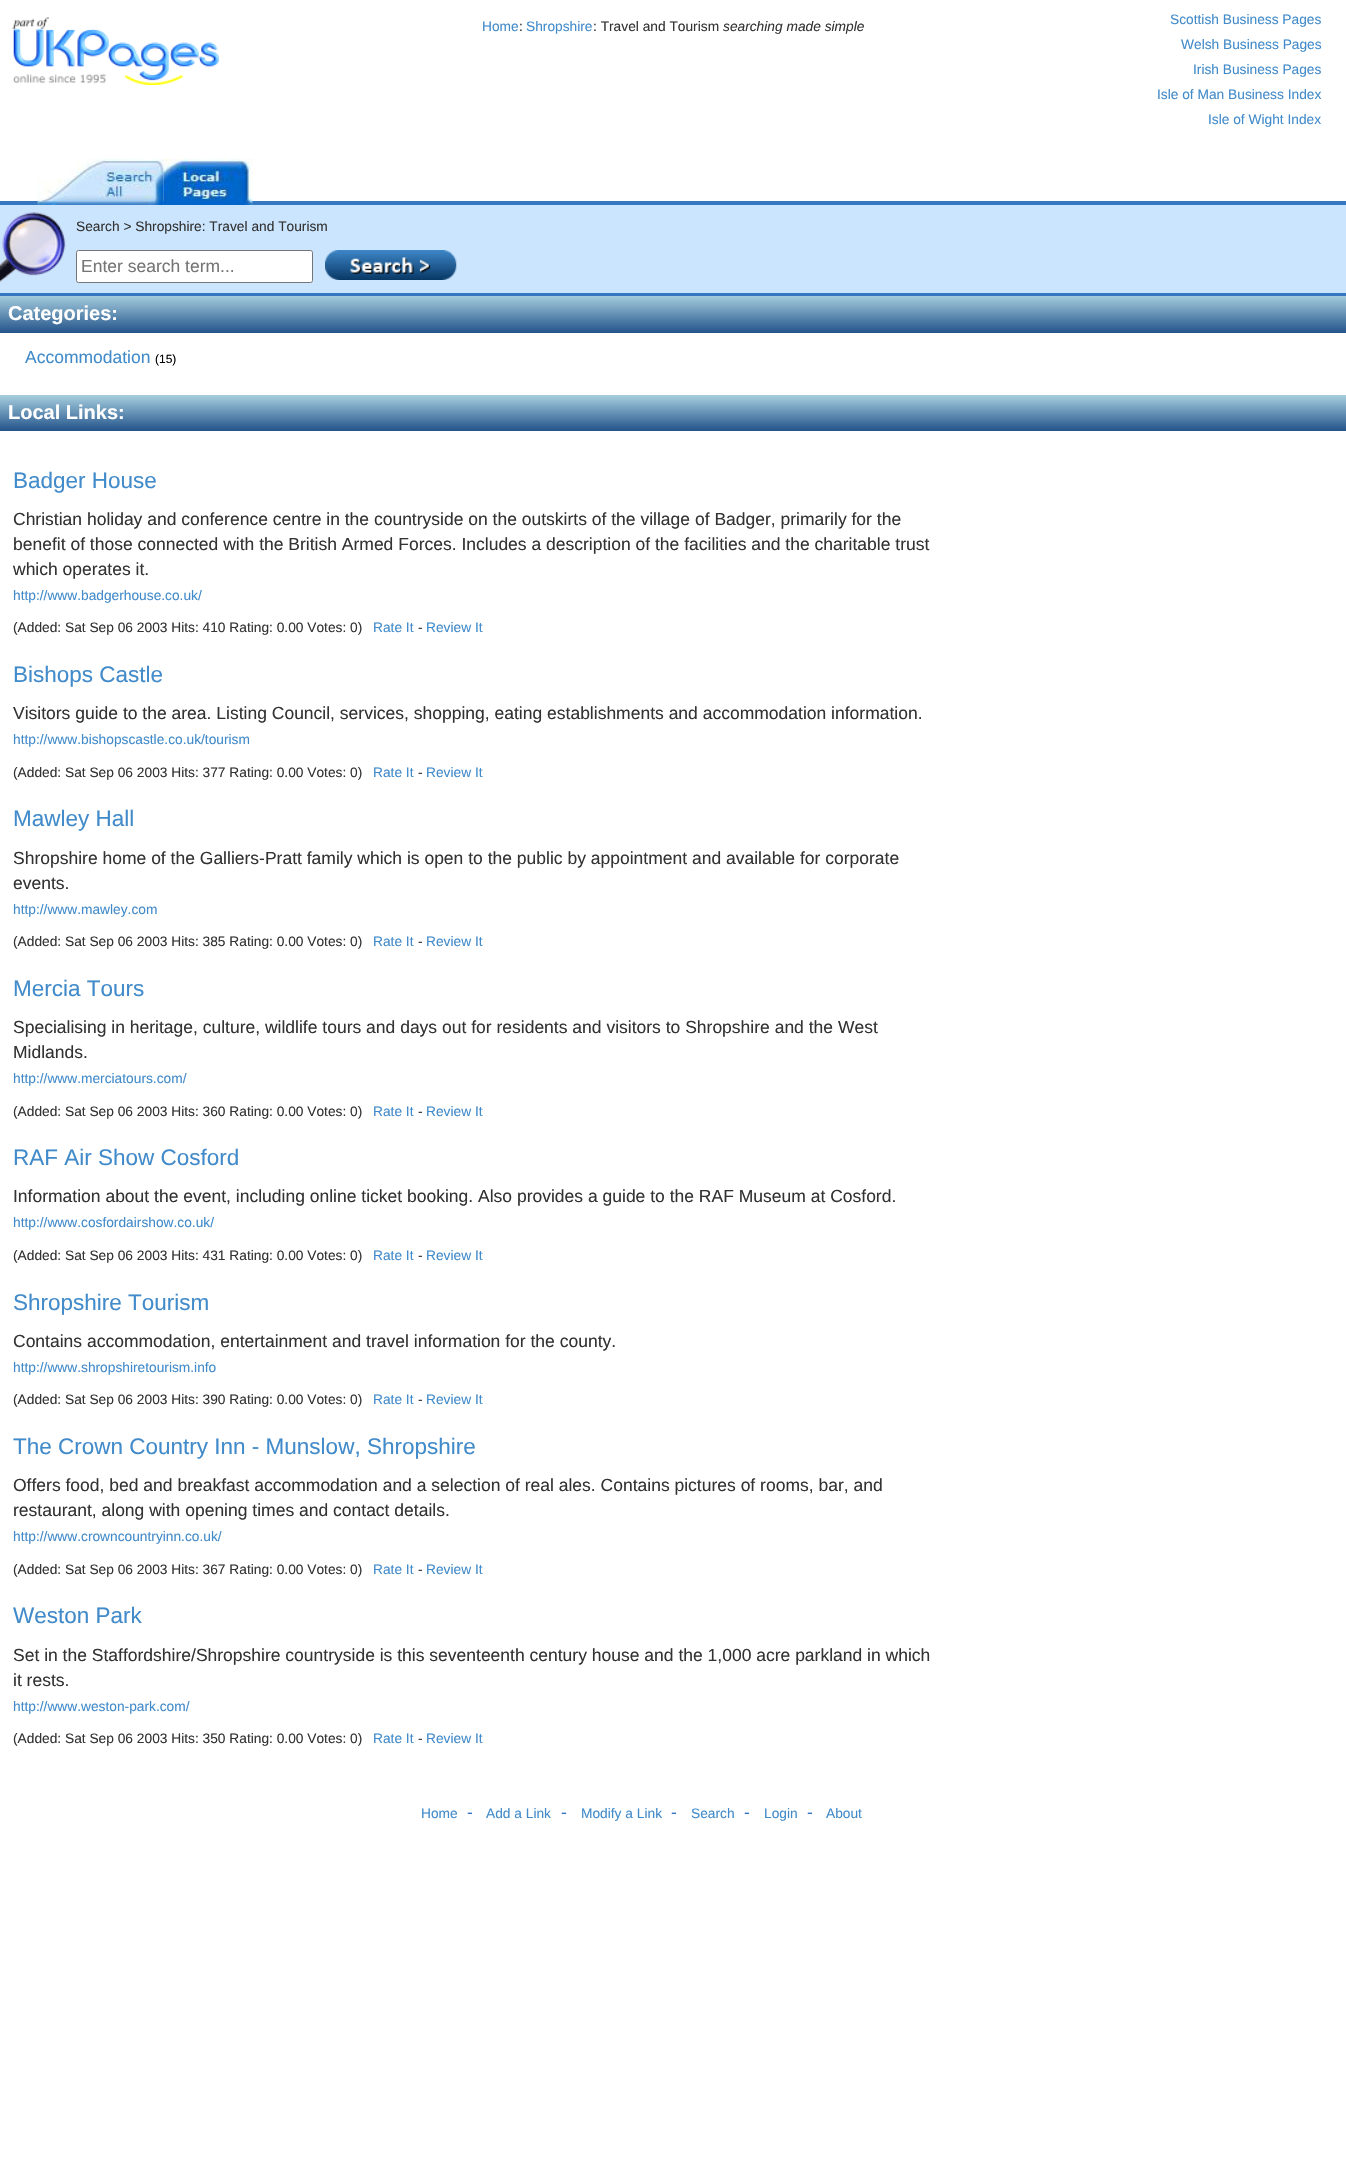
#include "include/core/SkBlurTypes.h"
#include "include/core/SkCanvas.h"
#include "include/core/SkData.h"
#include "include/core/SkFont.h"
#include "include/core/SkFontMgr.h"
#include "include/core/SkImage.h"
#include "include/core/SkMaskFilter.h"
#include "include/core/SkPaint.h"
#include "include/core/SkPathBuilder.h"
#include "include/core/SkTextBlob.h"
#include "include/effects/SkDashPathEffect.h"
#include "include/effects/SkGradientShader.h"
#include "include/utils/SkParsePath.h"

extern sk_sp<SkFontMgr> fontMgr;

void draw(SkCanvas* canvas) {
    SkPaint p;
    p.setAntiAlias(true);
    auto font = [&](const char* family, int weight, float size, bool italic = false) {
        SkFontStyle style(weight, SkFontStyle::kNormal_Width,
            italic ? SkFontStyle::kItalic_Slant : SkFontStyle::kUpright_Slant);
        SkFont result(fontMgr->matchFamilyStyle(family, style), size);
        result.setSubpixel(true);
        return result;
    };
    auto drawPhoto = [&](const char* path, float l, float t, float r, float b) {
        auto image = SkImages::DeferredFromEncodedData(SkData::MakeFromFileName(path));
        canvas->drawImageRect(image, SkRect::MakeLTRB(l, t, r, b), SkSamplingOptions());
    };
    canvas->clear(0xFFFFFFFF);
    drawPhoto("media/1.png", 12, 17, 219, 85);
    auto font1 = font("Liberation Sans", 400, 13.75f);
    p.setColor(0xFF428BCA);
    canvas->drawString("Home", 482, 31, font1, p);
    p.setColor(0xFF333333);
    canvas->drawString(":", 519, 31, font1, p);
    p.setColor(0xFF428BCA);
    canvas->drawString("Shropshire", 526, 31, font1, p);
    p.setColor(0xFF333333);
    canvas->drawString(": Travel and Tourism", 593, 31, font1, p);
    auto font2 = font("Liberation Sans", 400, 13.75f, true);
    canvas->drawString("searching made simple", 723, 31, font2, p);
    p.setColor(0xFF428BCA);
    {
        const struct { const char* s; float x, y; } items[] = {
            {"Scottish Business Pages", 1170, 24},
            {"Welsh Business Pages", 1181, 49},
            {"Irish Business Pages", 1193, 74},
            {"Isle of Man Business Index", 1157, 99},
            {"Isle of Wight Index", 1208, 124},
        };
        for (auto [s, x, y] : items) {
            canvas->drawString(s, x, y, font1, p);
        }
    }
    p.setColor(0xFF3577C1);
    canvas->drawRect(SkRect::MakeLTRB(0, 293, 1346, 296), p);
    canvas->drawRect(SkRect::MakeLTRB(0, 201, 1346, 205), p);
    drawPhoto("media/2.png", 37, 158, 164, 205);
    drawPhoto("media/3.png", 163, 158, 253, 205);
    p.setColor(0xFFCBE5FE);
    canvas->drawRect(SkRect::MakeLTRB(0, 205, 1346, 293), p);
    drawPhoto("media/4.png", 0, 212, 66, 283);
    p.setColor(0xFF333333);
    canvas->drawString("Search > Shropshire: Travel and Tourism", 76, 231, font1, p);
    p.setColor(0xFFFFFFFF);
    canvas->drawRoundRect(SkRect::MakeLTRB(76.5f, 250.5f, 312.5f, 282.5f), 2, 2, p);
    p.setStyle(SkPaint::kStroke_Style);
    p.setStrokeWidth(1);
    p.setColor(0xFF767676);
    canvas->drawRoundRect(SkRect::MakeLTRB(76.5f, 250.5f, 312.5f, 282.5f), 2, 2, p);
    auto font3 = font("Liberation Sans", 400, 17.5f);
    p.setStyle(SkPaint::kFill_Style);
    p.setColor(0xFF757575);
    canvas->drawString("Enter search term...", 81, 272, font3, p);
    drawPhoto("media/5.png", 325, 250, 457, 280);
    {
        const SkColor colors[] = {0xFFA7CFDF, 0xFF23538A};
        const float stops[] = {0, 1};
        const SkPoint ends[] = {{673, 295}, {673, 333}};
        p.setShader(SkGradientShader::MakeLinear(ends, colors, stops, 2, SkTileMode::kClamp));
        p.setAlpha(255);
    }
    canvas->drawRect(SkRect::MakeLTRB(0, 296, 1346, 333), p);
    auto font4 = font("Liberation Sans", 700, 20);
    p.setShader(nullptr);
    p.setColor(0xFFFFFFFF);
    canvas->drawString("Categories:", 8, 320, font4, p);
    p.setColor(0xFF428BCA);
    canvas->drawString("Accommodation", 25, 363, font3, p);
    auto font5 = font("Liberation Sans", 400, 12);
    p.setColor(0xFF000000);
    canvas->drawString("(15)", 155, 363, font5, p);
    {
        const SkColor colors[] = {0xFFA7CFDF, 0xFF23538A};
        const float stops[] = {0, 1};
        const SkPoint ends[] = {{673, 395}, {673, 431}};
        p.setShader(SkGradientShader::MakeLinear(ends, colors, stops, 2, SkTileMode::kClamp));
        p.setAlpha(255);
    }
    canvas->drawRect(SkRect::MakeLTRB(0, 395, 1346, 431), p);
    p.setShader(nullptr);
    p.setColor(0xFFFFFFFF);
    canvas->drawString("Local Links:", 8, 419, font4, p);
    auto font6 = font("Liberation Sans", 400, 22.5f);
    p.setColor(0xFF428BCA);
    canvas->drawString("Badger House", 13, 488, font6, p);
    p.setColor(0xFF333333);
    {
        const struct { const char* s; float x, y; } items[] = {
            {"Christian holiday and conference centre in the countryside on the outskirts of the village of Badger, primarily for the", 13, 525},
            {"benefit of those connected with the British Armed Forces. Includes a description of the facilities and the charitable trust", 13, 550},
            {"which operates it.", 13, 575},
        };
        for (auto [s, x, y] : items) {
            canvas->drawString(s, x, y, font3, p);
        }
    }
    p.setColor(0xFF428BCA);
    canvas->drawString("http://www.badgerhouse.co.uk/", 13, 600, font1, p);
    p.setColor(0xFF333333);
    canvas->drawString("(Added: Sat Sep 06 2003 Hits: 410 Rating: 0.00 Votes: 0)", 13, 632, font1, p);
    p.setColor(0xFF428BCA);
    canvas->drawString("Rate It", 373, 632, font1, p);
    p.setColor(0xFF333333);
    canvas->drawString("-", 418, 632, font1, p);
    p.setColor(0xFF428BCA);
    canvas->drawString("Review It", 426, 632, font1, p);
    canvas->drawString("Bishops Castle", 13, 682, font6, p);
    p.setColor(0xFF333333);
    canvas->drawString("Visitors guide to the area. Listing Council, services, shopping, eating establishments and accommodation information.", 13, 719, font3, p);
    p.setColor(0xFF428BCA);
    canvas->drawString("http://www.bishopscastle.co.uk/tourism", 13, 744, font1, p);
    p.setColor(0xFF333333);
    canvas->drawString("(Added: Sat Sep 06 2003 Hits: 377 Rating: 0.00 Votes: 0)", 13, 777, font1, p);
    p.setColor(0xFF428BCA);
    canvas->drawString("Rate It", 373, 777, font1, p);
    p.setColor(0xFF333333);
    canvas->drawString("-", 418, 777, font1, p);
    p.setColor(0xFF428BCA);
    canvas->drawString("Review It", 426, 777, font1, p);
    canvas->drawString("Mawley Hall", 13, 826, font6, p);
    p.setColor(0xFF333333);
    canvas->drawString("Shropshire home of the Galliers-Pratt family which is open to the public by appointment and available for corporate", 13, 864, font3, p);
    canvas->drawString("events.", 13, 889, font3, p);
    p.setColor(0xFF428BCA);
    canvas->drawString("http://www.mawley.com", 13, 914, font1, p);
    p.setColor(0xFF333333);
    canvas->drawString("(Added: Sat Sep 06 2003 Hits: 385 Rating: 0.00 Votes: 0)", 13, 946, font1, p);
    p.setColor(0xFF428BCA);
    canvas->drawString("Rate It", 373, 946, font1, p);
    p.setColor(0xFF333333);
    canvas->drawString("-", 418, 946, font1, p);
    p.setColor(0xFF428BCA);
    canvas->drawString("Review It", 426, 946, font1, p);
    canvas->drawString("Mercia Tours", 13, 996, font6, p);
    p.setColor(0xFF333333);
    canvas->drawString("Specialising in heritage, culture, wildlife tours and days out for residents and visitors to Shropshire and the West", 13, 1033, font3, p);
    canvas->drawString("Midlands.", 13, 1058, font3, p);
    p.setColor(0xFF428BCA);
    canvas->drawString("http://www.merciatours.com/", 13, 1083, font1, p);
    p.setColor(0xFF333333);
    canvas->drawString("(Added: Sat Sep 06 2003 Hits: 360 Rating: 0.00 Votes: 0)", 13, 1116, font1, p);
    p.setColor(0xFF428BCA);
    canvas->drawString("Rate It", 373, 1116, font1, p);
    p.setColor(0xFF333333);
    canvas->drawString("-", 418, 1116, font1, p);
    p.setColor(0xFF428BCA);
    canvas->drawString("Review It", 426, 1116, font1, p);
    canvas->drawString("RAF Air Show Cosford", 13, 1165, font6, p);
    p.setColor(0xFF333333);
    canvas->drawString("Information about the event, including online ticket booking. Also provides a guide to the RAF Museum at Cosford.", 13, 1202, font3, p);
    p.setColor(0xFF428BCA);
    canvas->drawString("http://www.cosfordairshow.co.uk/", 13, 1227, font1, p);
    p.setColor(0xFF333333);
    canvas->drawString("(Added: Sat Sep 06 2003 Hits: 431 Rating: 0.00 Votes: 0)", 13, 1260, font1, p);
    p.setColor(0xFF428BCA);
    canvas->drawString("Rate It", 373, 1260, font1, p);
    p.setColor(0xFF333333);
    canvas->drawString("-", 418, 1260, font1, p);
    p.setColor(0xFF428BCA);
    canvas->drawString("Review It", 426, 1260, font1, p);
    canvas->drawString("Shropshire Tourism", 13, 1310, font6, p);
    p.setColor(0xFF333333);
    canvas->drawString("Contains accommodation, entertainment and travel information for the county.", 13, 1347, font3, p);
    p.setColor(0xFF428BCA);
    canvas->drawString("http://www.shropshiretourism.info", 13, 1372, font1, p);
    p.setColor(0xFF333333);
    canvas->drawString("(Added: Sat Sep 06 2003 Hits: 390 Rating: 0.00 Votes: 0)", 13, 1404, font1, p);
    p.setColor(0xFF428BCA);
    canvas->drawString("Rate It", 373, 1404, font1, p);
    p.setColor(0xFF333333);
    canvas->drawString("-", 418, 1404, font1, p);
    p.setColor(0xFF428BCA);
    canvas->drawString("Review It", 426, 1404, font1, p);
    canvas->drawString("The Crown Country Inn - Munslow, Shropshire", 13, 1454, font6, p);
    p.setColor(0xFF333333);
    canvas->drawString("Offers food, bed and breakfast accommodation and a selection of real ales. Contains pictures of rooms, bar, and", 13, 1491, font3, p);
    canvas->drawString("restaurant, along with opening times and contact details.", 13, 1516, font3, p);
    p.setColor(0xFF428BCA);
    canvas->drawString("http://www.crowncountryinn.co.uk/", 13, 1541, font1, p);
    p.setColor(0xFF333333);
    canvas->drawString("(Added: Sat Sep 06 2003 Hits: 367 Rating: 0.00 Votes: 0)", 13, 1574, font1, p);
    p.setColor(0xFF428BCA);
    canvas->drawString("Rate It", 373, 1574, font1, p);
    p.setColor(0xFF333333);
    canvas->drawString("-", 418, 1574, font1, p);
    p.setColor(0xFF428BCA);
    canvas->drawString("Review It", 426, 1574, font1, p);
    canvas->drawString("Weston Park", 13, 1623, font6, p);
    p.setColor(0xFF333333);
    canvas->drawString("Set in the Staffordshire/Shropshire countryside is this seventeenth century house and the 1,000 acre parkland in which", 13, 1661, font3, p);
    canvas->drawString("it rests.", 13, 1686, font3, p);
    p.setColor(0xFF428BCA);
    canvas->drawString("http://www.weston-park.com/", 13, 1711, font1, p);
    p.setColor(0xFF333333);
    canvas->drawString("(Added: Sat Sep 06 2003 Hits: 350 Rating: 0.00 Votes: 0)", 13, 1743, font1, p);
    p.setColor(0xFF428BCA);
    canvas->drawString("Rate It", 373, 1743, font1, p);
    p.setColor(0xFF333333);
    canvas->drawString("-", 418, 1743, font1, p);
    p.setColor(0xFF428BCA);
    canvas->drawString("Review It", 426, 1743, font1, p);
    canvas->drawString("Home", 421, 1818, font1, p);
    p.setColor(0xFF3577C1);
    canvas->drawString("-", 467, 1818, font3, p);
    p.setColor(0xFF428BCA);
    canvas->drawString("Add a Link", 486, 1818, font1, p);
    p.setColor(0xFF3577C1);
    canvas->drawString("-", 561, 1818, font3, p);
    p.setColor(0xFF428BCA);
    canvas->drawString("Modify a Link", 581, 1818, font1, p);
    p.setColor(0xFF3577C1);
    canvas->drawString("-", 671, 1818, font3, p);
    p.setColor(0xFF428BCA);
    canvas->drawString("Search", 691, 1818, font1, p);
    p.setColor(0xFF3577C1);
    canvas->drawString("-", 744, 1818, font3, p);
    p.setColor(0xFF428BCA);
    canvas->drawString("Login", 764, 1818, font1, p);
    p.setColor(0xFF3577C1);
    canvas->drawString("-", 807, 1818, font3, p);
    p.setColor(0xFF428BCA);
    canvas->drawString("About", 826, 1818, font1, p);
}
